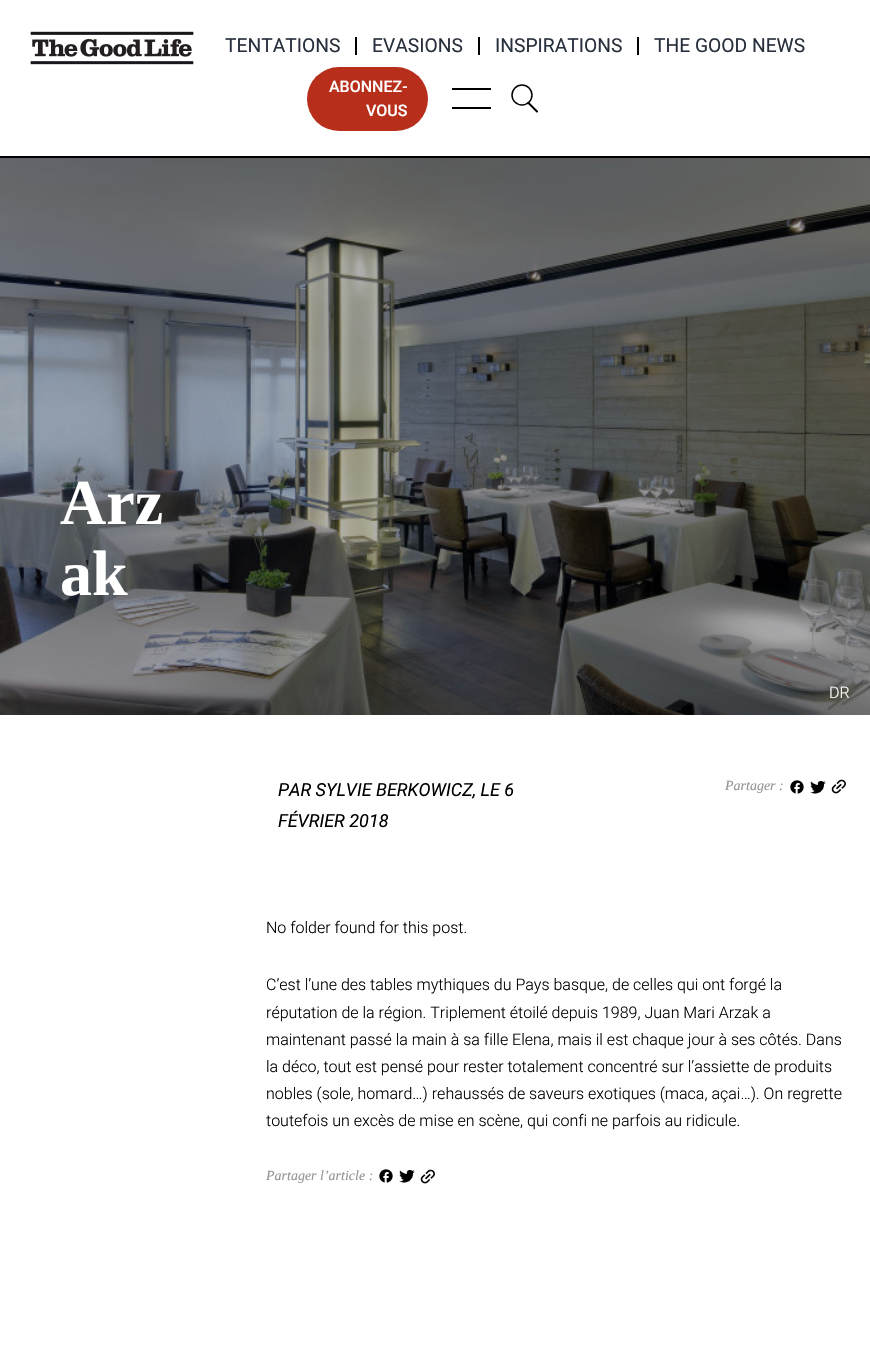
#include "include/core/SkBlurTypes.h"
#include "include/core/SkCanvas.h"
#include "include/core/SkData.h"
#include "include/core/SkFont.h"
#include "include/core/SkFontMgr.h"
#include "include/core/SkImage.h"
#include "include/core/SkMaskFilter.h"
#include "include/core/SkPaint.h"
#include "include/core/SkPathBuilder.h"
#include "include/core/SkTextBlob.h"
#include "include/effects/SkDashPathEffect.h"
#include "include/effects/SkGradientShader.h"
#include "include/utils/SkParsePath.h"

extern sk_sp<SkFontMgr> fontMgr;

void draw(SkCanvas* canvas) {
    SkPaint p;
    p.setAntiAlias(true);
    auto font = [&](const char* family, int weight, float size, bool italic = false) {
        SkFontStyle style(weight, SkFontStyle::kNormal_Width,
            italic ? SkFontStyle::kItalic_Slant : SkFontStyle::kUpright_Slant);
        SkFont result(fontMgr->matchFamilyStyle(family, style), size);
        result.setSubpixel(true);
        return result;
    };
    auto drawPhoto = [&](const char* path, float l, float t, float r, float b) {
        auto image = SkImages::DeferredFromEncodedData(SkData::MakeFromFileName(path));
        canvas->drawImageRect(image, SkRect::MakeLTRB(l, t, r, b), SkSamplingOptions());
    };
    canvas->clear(0xFFFFFFFF);
    p.setColor(0xFF000000);
    canvas->drawRect(SkRect::MakeLTRB(0, 156, 870, 158), p);
    drawPhoto("media/1.png", 30, 31, 194, 65);
    auto font1 = font("Roboto", 400, 19.25f);
    p.setColor(0xFF28303D);
    canvas->drawString("TENTATIONS", 225, 52, font1, p);
    p.setColor(0xFF000000);
    canvas->drawRect(SkRect::MakeLTRB(355, 37, 357, 55), p);
    p.setColor(0xFF28303D);
    canvas->drawString("EVASIONS", 372, 52, font1, p);
    p.setColor(0xFF000000);
    canvas->drawRect(SkRect::MakeLTRB(478, 37, 480, 55), p);
    p.setColor(0xFF28303D);
    canvas->drawString("INSPIRATIONS", 495, 52, font1, p);
    p.setColor(0xFF000000);
    canvas->drawRect(SkRect::MakeLTRB(637, 37, 639, 55), p);
    p.setColor(0xFF28303D);
    canvas->drawString("THE GOOD NEWS", 654, 52, font1, p);
    p.setColor(0xFFB72E1B);
    canvas->drawRoundRect(SkRect::MakeLTRB(307, 67, 428, 131), 32, 32, p);
    auto font2 = font("Roboto", 500, 16);
    p.setColor(0xFFFFFFFF);
    canvas->drawString("ABONNEZ-", 329, 92, font2, p);
    canvas->drawString("VOUS", 366, 116, font2, p);
    p.setColor(0xFF000000);
    canvas->drawRect(SkRect::MakeLTRB(452, 88, 491, 90), p);
    canvas->drawRect(SkRect::MakeLTRB(452, 107, 491, 109), p);
    p.setStyle(SkPaint::kStroke_Style);
    p.setStrokeWidth(2);
    p.setStrokeCap(SkPaint::kRound_Cap);
    canvas->drawPath(SkPathBuilder().moveTo(528.5f, 103).lineTo(537, 111.5f).detach(), p);
    p.setStrokeWidth(1.5f);
    p.setStrokeCap(SkPaint::kButt_Cap);
    canvas->drawCircle(522, 95, 10, p);
    drawPhoto("media/2.png", 0, 158, 870, 715);
    auto font3 = font("Liberation Serif", 700, 64);
    p.setStyle(SkPaint::kFill_Style);
    p.setColor(0xFFFFFFFF);
    canvas->drawString("Arz", 60, 524, font3, p);
    canvas->drawString("ak", 60, 595, font3, p);
    auto font4 = font("Roboto", 300, 16);
    canvas->drawString("DR", 829, 698, font4, p);
    auto font5 = font("Roboto", 400, 18, true);
    p.setColor(0xFF000000);
    canvas->drawString("PAR SYLVIE BERKOWICZ, LE 6", 278, 796, font5, p);
    canvas->drawString("FÉVRIER 2018", 278, 827, font5, p);
    auto font6 = font("Liberation Serif", 400, 14, true);
    p.setColor(0xFF949292);
    canvas->drawString("Partager :", 725, 790, font6, p);
    drawPhoto("media/3.png", 790, 780, 804, 794);
    drawPhoto("media/4.png", 810, 781, 826, 794);
    drawPhoto("media/5.png", 831, 779, 846, 794);
    p.setColor(0xFF000000);
    {
        const struct { const char* s; float x, y; } items[] = {
            {"No folder found for this post.", 266, 933},
            {"C’est l’une des tables mythiques du Pays basque, de celles qui ont forgé la", 266, 990},
            {"réputation de la région. Triplement étoilé depuis 1989, Juan Mari Arzak a", 266, 1018},
            {"maintenant passé la main à sa fille Elena, mais il est chaque jour à ses côtés. Dans", 266, 1045},
            {"la déco, tout est pensé pour rester totalement concentré sur l’assiette de produits", 266, 1072},
            {"nobles (sole, homard…) rehaussés de saveurs exotiques (maca, açai…). On regrette", 266, 1099},
            {"toutefois un excès de mise en scène, qui confi ne parfois au ridicule.", 266, 1126},
        };
        for (auto [s, x, y] : items) {
            canvas->drawString(s, x, y, font4, p);
        }
    }
    p.setColor(0xFF949292);
    canvas->drawString("Partager l’article :", 266, 1180, font6, p);
    drawPhoto("media/3.png", 379, 1169, 393, 1183);
    drawPhoto("media/4.png", 399, 1170, 415, 1183);
    drawPhoto("media/5.png", 420, 1169, 435, 1184);
}
